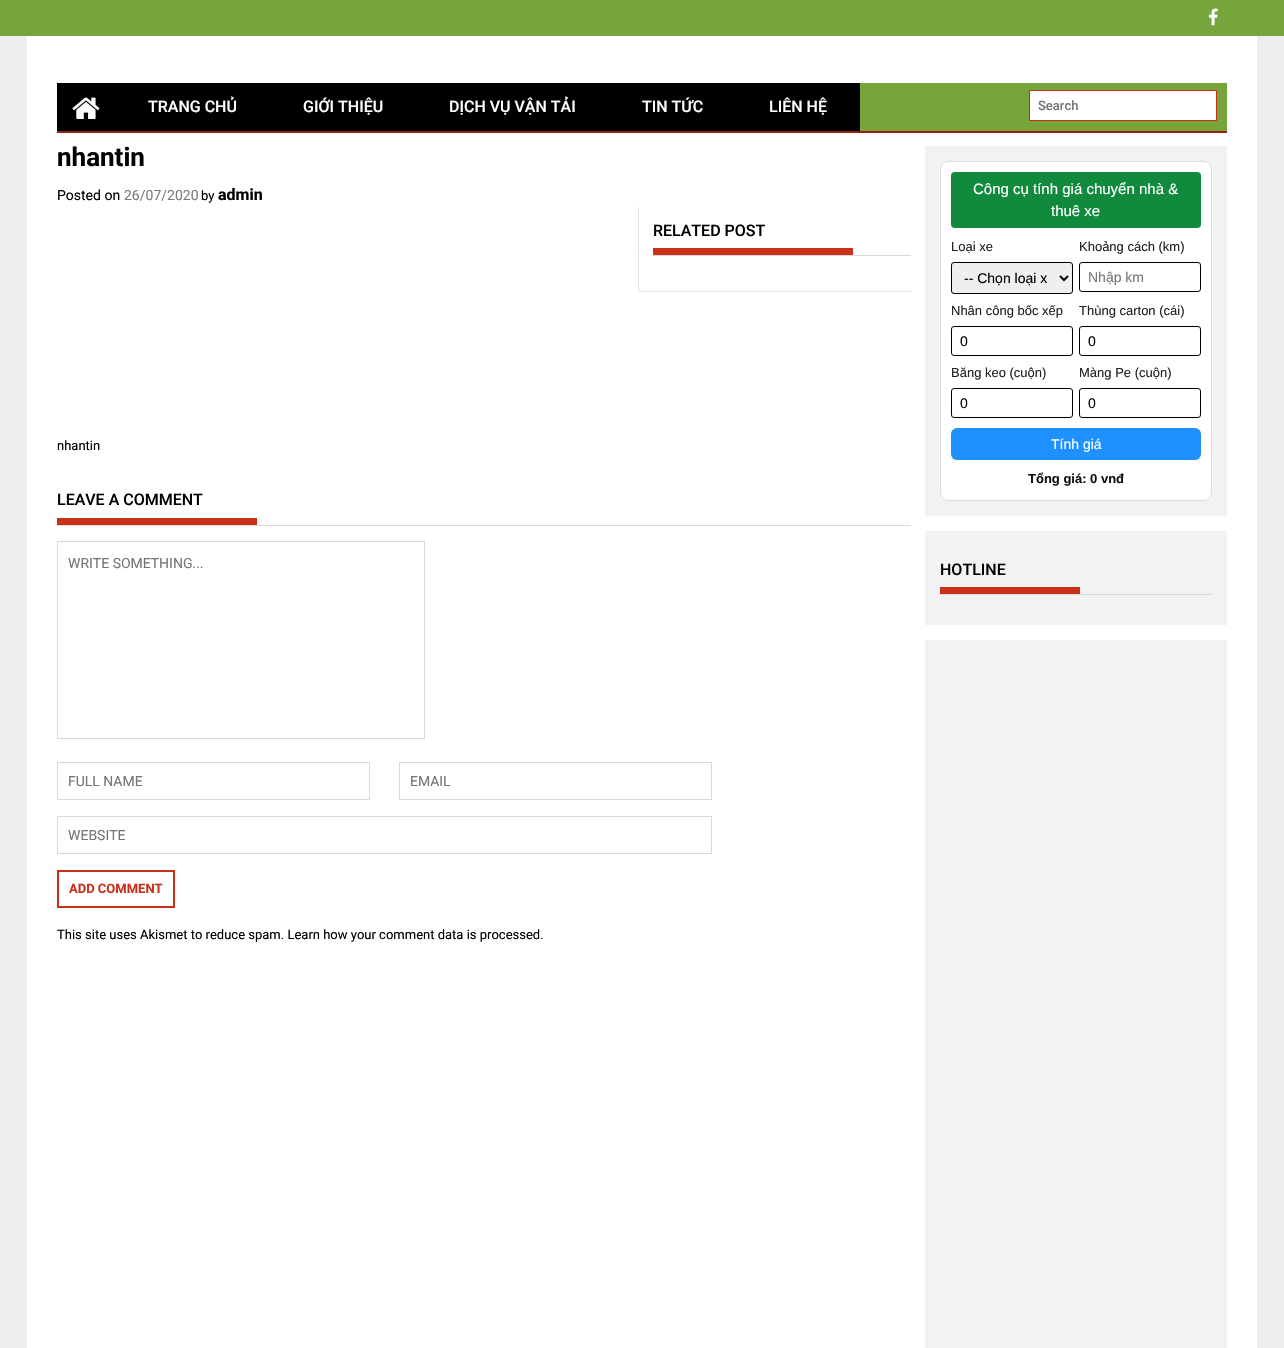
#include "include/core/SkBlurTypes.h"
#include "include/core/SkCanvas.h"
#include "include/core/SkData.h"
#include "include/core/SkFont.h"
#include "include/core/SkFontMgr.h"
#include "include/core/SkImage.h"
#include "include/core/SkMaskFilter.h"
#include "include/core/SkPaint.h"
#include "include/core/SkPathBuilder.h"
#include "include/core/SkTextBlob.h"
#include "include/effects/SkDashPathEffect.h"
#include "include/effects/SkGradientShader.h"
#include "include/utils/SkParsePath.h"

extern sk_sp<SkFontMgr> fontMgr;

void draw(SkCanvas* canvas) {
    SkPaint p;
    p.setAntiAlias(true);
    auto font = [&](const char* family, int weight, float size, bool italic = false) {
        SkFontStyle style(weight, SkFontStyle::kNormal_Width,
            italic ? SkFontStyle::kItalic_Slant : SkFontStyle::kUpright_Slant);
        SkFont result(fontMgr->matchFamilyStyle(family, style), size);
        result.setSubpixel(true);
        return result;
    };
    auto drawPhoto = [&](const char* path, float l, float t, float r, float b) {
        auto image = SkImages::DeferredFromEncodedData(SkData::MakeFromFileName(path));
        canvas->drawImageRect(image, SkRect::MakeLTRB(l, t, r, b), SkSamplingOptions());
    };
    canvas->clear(0xFFEEEEEF);
    p.setColor(0xFF77A53B);
    canvas->drawRect(SkRect::MakeLTRB(0, 0, 1284, 36), p);
    drawPhoto("media/1.png", 1208, 8, 1218, 26);
    {
        const struct { float l, t, r, b; SkColor color; } items[] = {
            {27, 36, 1257, 1348, 0xFFFFFFFF},
            {860, 83, 1227, 131, 0xFF77A53B},
            {57, 131, 1227, 133, 0xFF932213},
            {57, 83, 860, 131, 0xFF000000},
        };
        for (auto [l, t, r, b, color] : items) {
            p.setColor(color);
            canvas->drawRect(SkRect::MakeLTRB(l, t, r, b), p);
        }
    }
    drawPhoto("media/2.png", 72, 97, 100, 119);
    auto font1 = font("Roboto", 500, 16);
    p.setColor(0xFFFFFFFF);
    {
        const struct { const char* s; float x, y; } items[] = {
            {"TRANG CHỦ", 148, 112},
            {"GIỚI THIỆU", 303, 112},
            {"DỊCH VỤ VẬN TẢI", 449, 112},
            {"TIN TỨC", 642, 112},
            {"LIÊN HỆ", 769, 112},
        };
        for (auto [s, x, y] : items) {
            canvas->drawString(s, x, y, font1, p);
        }
    }
    canvas->drawRect(SkRect::MakeLTRB(1029.5f, 90.5f, 1216.5f, 120.5f), p);
    p.setStyle(SkPaint::kStroke_Style);
    p.setStrokeWidth(1);
    p.setColor(0xFFCA2F1A);
    canvas->drawRect(SkRect::MakeLTRB(1029.5f, 90.5f, 1216.5f, 120.5f), p);
    auto font2 = font("Roboto", 500, 13);
    p.setStyle(SkPaint::kFill_Style);
    p.setColor(0xFF757575);
    canvas->drawString("Search", 1038, 110, font2, p);
    auto font3 = font("Roboto", 700, 26);
    p.setColor(0xFF000000);
    canvas->drawString("nhantin", 57, 166, font3, p);
    auto font4 = font("Roboto", 400, 14);
    canvas->drawString("Posted on", 57, 200, font4, p);
    p.setColor(0xFF7C7C7C);
    canvas->drawString("26/07/2020", 124, 200, font4, p);
    auto font5 = font("Roboto", 400, 13);
    p.setColor(0xFF000000);
    canvas->drawString("by", 201, 200, font5, p);
    auto font6 = font("Roboto", 700, 16);
    canvas->drawString("admin", 218, 200, font6, p);
    {
        const struct { float l, t, r, b; SkColor color; } items[] = {
            {638, 291, 911, 292, 0xFFE3E3E3},
            {638, 207, 639, 292, 0xFFE3E3E3},
            {653, 255, 911, 256, 0xFFD9D9D9},
        };
        for (auto [l, t, r, b, color] : items) {
            p.setColor(color);
            canvas->drawRect(SkRect::MakeLTRB(l, t, r, b), p);
        }
    }
    p.setColor(0xFF000000);
    canvas->drawString("RELATED POST", 653, 236, font1, p);
    p.setColor(0xFFCA2F1A);
    canvas->drawRect(SkRect::MakeLTRB(653, 248, 853, 255), p);
    p.setColor(0xFF000000);
    canvas->drawString("nhantin", 57, 450, font5, p);
    p.setColor(0xFFD9D9D9);
    canvas->drawRect(SkRect::MakeLTRB(57, 525, 911, 526), p);
    p.setColor(0xFF000000);
    canvas->drawString("LEAVE A COMMENT", 57, 505, font1, p);
    p.setColor(0xFFCA2F1A);
    canvas->drawRect(SkRect::MakeLTRB(57, 518, 257, 525), p);
    p.setStyle(SkPaint::kStroke_Style);
    p.setColor(0xFFD9D9D9);
    canvas->drawRect(SkRect::MakeLTRB(57.5f, 541.5f, 424.5f, 738.5f), p);
    p.setStyle(SkPaint::kFill_Style);
    p.setColor(0xFF757575);
    canvas->drawString("WRITE SOMETHING...", 68, 568, font4, p);
    p.setStyle(SkPaint::kStroke_Style);
    p.setColor(0xFFD9D9D9);
    canvas->drawRect(SkRect::MakeLTRB(57.5f, 762.5f, 369.5f, 799.5f), p);
    p.setStyle(SkPaint::kFill_Style);
    p.setColor(0xFF757575);
    canvas->drawString("FULL NAME", 68, 786, font4, p);
    p.setStyle(SkPaint::kStroke_Style);
    p.setColor(0xFFD9D9D9);
    canvas->drawRect(SkRect::MakeLTRB(399.5f, 762.5f, 711.5f, 799.5f), p);
    p.setStyle(SkPaint::kFill_Style);
    p.setColor(0xFF757575);
    canvas->drawString("EMAIL", 410, 786, font4, p);
    p.setStyle(SkPaint::kStroke_Style);
    p.setColor(0xFFD9D9D9);
    canvas->drawRect(SkRect::MakeLTRB(57.5f, 816.5f, 711.5f, 853.5f), p);
    p.setStyle(SkPaint::kFill_Style);
    p.setColor(0xFF757575);
    canvas->drawString("WEBSITE", 68, 840, font4, p);
    p.setStyle(SkPaint::kStroke_Style);
    p.setStrokeWidth(2);
    p.setColor(0xFFCA2F1A);
    canvas->drawRect(SkRect::MakeLTRB(58, 871, 174, 907), p);
    auto font7 = font("Roboto", 700, 13);
    p.setStyle(SkPaint::kFill_Style);
    canvas->drawString("ADD COMMENT", 69, 893, font7, p);
    p.setColor(0xFF000000);
    canvas->drawString("This site uses Akismet to reduce spam. Learn how your comment data is processed.", 57, 939, font5, p);
    p.setColor(0xFFF2F2F2);
    canvas->drawRect(SkRect::MakeLTRB(925, 146, 1227, 516), p);
    p.setColor(0xFFFFFFFF);
    canvas->drawRoundRect(SkRect::MakeLTRB(940.5f, 161.5f, 1211.5f, 500.5f), 7.5f, 7.5f, p);
    p.setStyle(SkPaint::kStroke_Style);
    p.setStrokeWidth(1);
    p.setColor(0xFFDDDDDD);
    canvas->drawRoundRect(SkRect::MakeLTRB(940.5f, 161.5f, 1211.5f, 500.5f), 7.5f, 7.5f, p);
    p.setStyle(SkPaint::kFill_Style);
    p.setColor(0xFF118A3D);
    canvas->drawRoundRect(SkRect::MakeLTRB(951, 172, 1201, 228), 4, 4, p);
    auto font8 = font("Liberation Sans", 400, 15);
    p.setColor(0xFFFFFFFF);
    canvas->drawString("Công cụ tính giá chuyển nhà &", 973, 194, font8, p);
    canvas->drawString("thuê xe", 1051, 216, font8, p);
    auto font9 = font("Liberation Sans", 400, 13);
    p.setColor(0xFF222222);
    canvas->drawString("Loại xe", 951, 251, font9, p);
    p.setColor(0xFFEFEFEF);
    canvas->drawRoundRect(SkRect::MakeLTRB(951.5f, 262.5f, 1072.5f, 293.5f), 2.5f, 2.5f, p);
    p.setStyle(SkPaint::kStroke_Style);
    p.setColor(0xFF000000);
    canvas->drawRoundRect(SkRect::MakeLTRB(951.5f, 262.5f, 1072.5f, 293.5f), 2.5f, 2.5f, p);
    p.setStrokeWidth(2);
    canvas->drawPath(SkPathBuilder().moveTo(1060, 276).lineTo(1064, 280).lineTo(1068, 276).detach(), p);
    auto font10 = font("Liberation Sans", 400, 14);
    p.setStyle(SkPaint::kFill_Style);
    canvas->drawString("-- Chọn loại x", 964, 283, font10, p);
    p.setColor(0xFF222222);
    canvas->drawString("Khoảng cách (km)", 1079, 251, font9, p);
    p.setStyle(SkPaint::kStroke_Style);
    p.setStrokeWidth(1);
    p.setColor(0xFF000000);
    canvas->drawRoundRect(SkRect::MakeLTRB(1079.5f, 262.5f, 1200.5f, 291.5f), 2.5f, 2.5f, p);
    p.setStyle(SkPaint::kFill_Style);
    p.setColor(0xFF757575);
    canvas->drawString("Nhập km", 1088, 282, font10, p);
    p.setColor(0xFF222222);
    canvas->drawString("Nhân công bốc xếp", 951, 315, font9, p);
    p.setStyle(SkPaint::kStroke_Style);
    p.setColor(0xFF000000);
    canvas->drawRoundRect(SkRect::MakeLTRB(951.5f, 326.5f, 1072.5f, 355.5f), 2.5f, 2.5f, p);
    p.setStyle(SkPaint::kFill_Style);
    canvas->drawString("0", 960, 346, font10, p);
    p.setColor(0xFF222222);
    canvas->drawString("Thùng carton (cái)", 1079, 315, font9, p);
    p.setStyle(SkPaint::kStroke_Style);
    p.setColor(0xFF000000);
    canvas->drawRoundRect(SkRect::MakeLTRB(1079.5f, 326.5f, 1200.5f, 355.5f), 2.5f, 2.5f, p);
    p.setStyle(SkPaint::kFill_Style);
    canvas->drawString("0", 1088, 346, font10, p);
    p.setColor(0xFF222222);
    canvas->drawString("Băng keo (cuộn)", 951, 377, font9, p);
    p.setStyle(SkPaint::kStroke_Style);
    p.setColor(0xFF000000);
    canvas->drawRoundRect(SkRect::MakeLTRB(951.5f, 388.5f, 1072.5f, 417.5f), 2.5f, 2.5f, p);
    p.setStyle(SkPaint::kFill_Style);
    canvas->drawString("0", 960, 408, font10, p);
    p.setColor(0xFF222222);
    canvas->drawString("Màng Pe (cuộn)", 1079, 377, font9, p);
    p.setStyle(SkPaint::kStroke_Style);
    p.setColor(0xFF000000);
    canvas->drawRoundRect(SkRect::MakeLTRB(1079.5f, 388.5f, 1200.5f, 417.5f), 2.5f, 2.5f, p);
    p.setStyle(SkPaint::kFill_Style);
    canvas->drawString("0", 1088, 408, font10, p);
    p.setColor(0xFF1E90FF);
    canvas->drawRoundRect(SkRect::MakeLTRB(951, 428, 1201, 460), 6, 6, p);
    p.setColor(0xFFFFFFFF);
    canvas->drawString("Tính giá", 1051, 449, font10, p);
    auto font11 = font("Liberation Sans", 700, 13);
    p.setColor(0xFF111111);
    canvas->drawString("Tổng giá: 0 vnđ", 1028, 483, font11, p);
    p.setColor(0xFFF2F2F2);
    canvas->drawRect(SkRect::MakeLTRB(925, 531, 1227, 625), p);
    p.setColor(0xFFD9D9D9);
    canvas->drawRect(SkRect::MakeLTRB(940, 594, 1212, 595), p);
    p.setColor(0xFF000000);
    canvas->drawString("HOTLINE", 940, 575, font1, p);
    p.setColor(0xFFCA2F1A);
    canvas->drawRect(SkRect::MakeLTRB(940, 587, 1080, 594), p);
    p.setColor(0xFFF2F2F2);
    canvas->drawRect(SkRect::MakeLTRB(925, 640, 1227, 1348), p);
}
